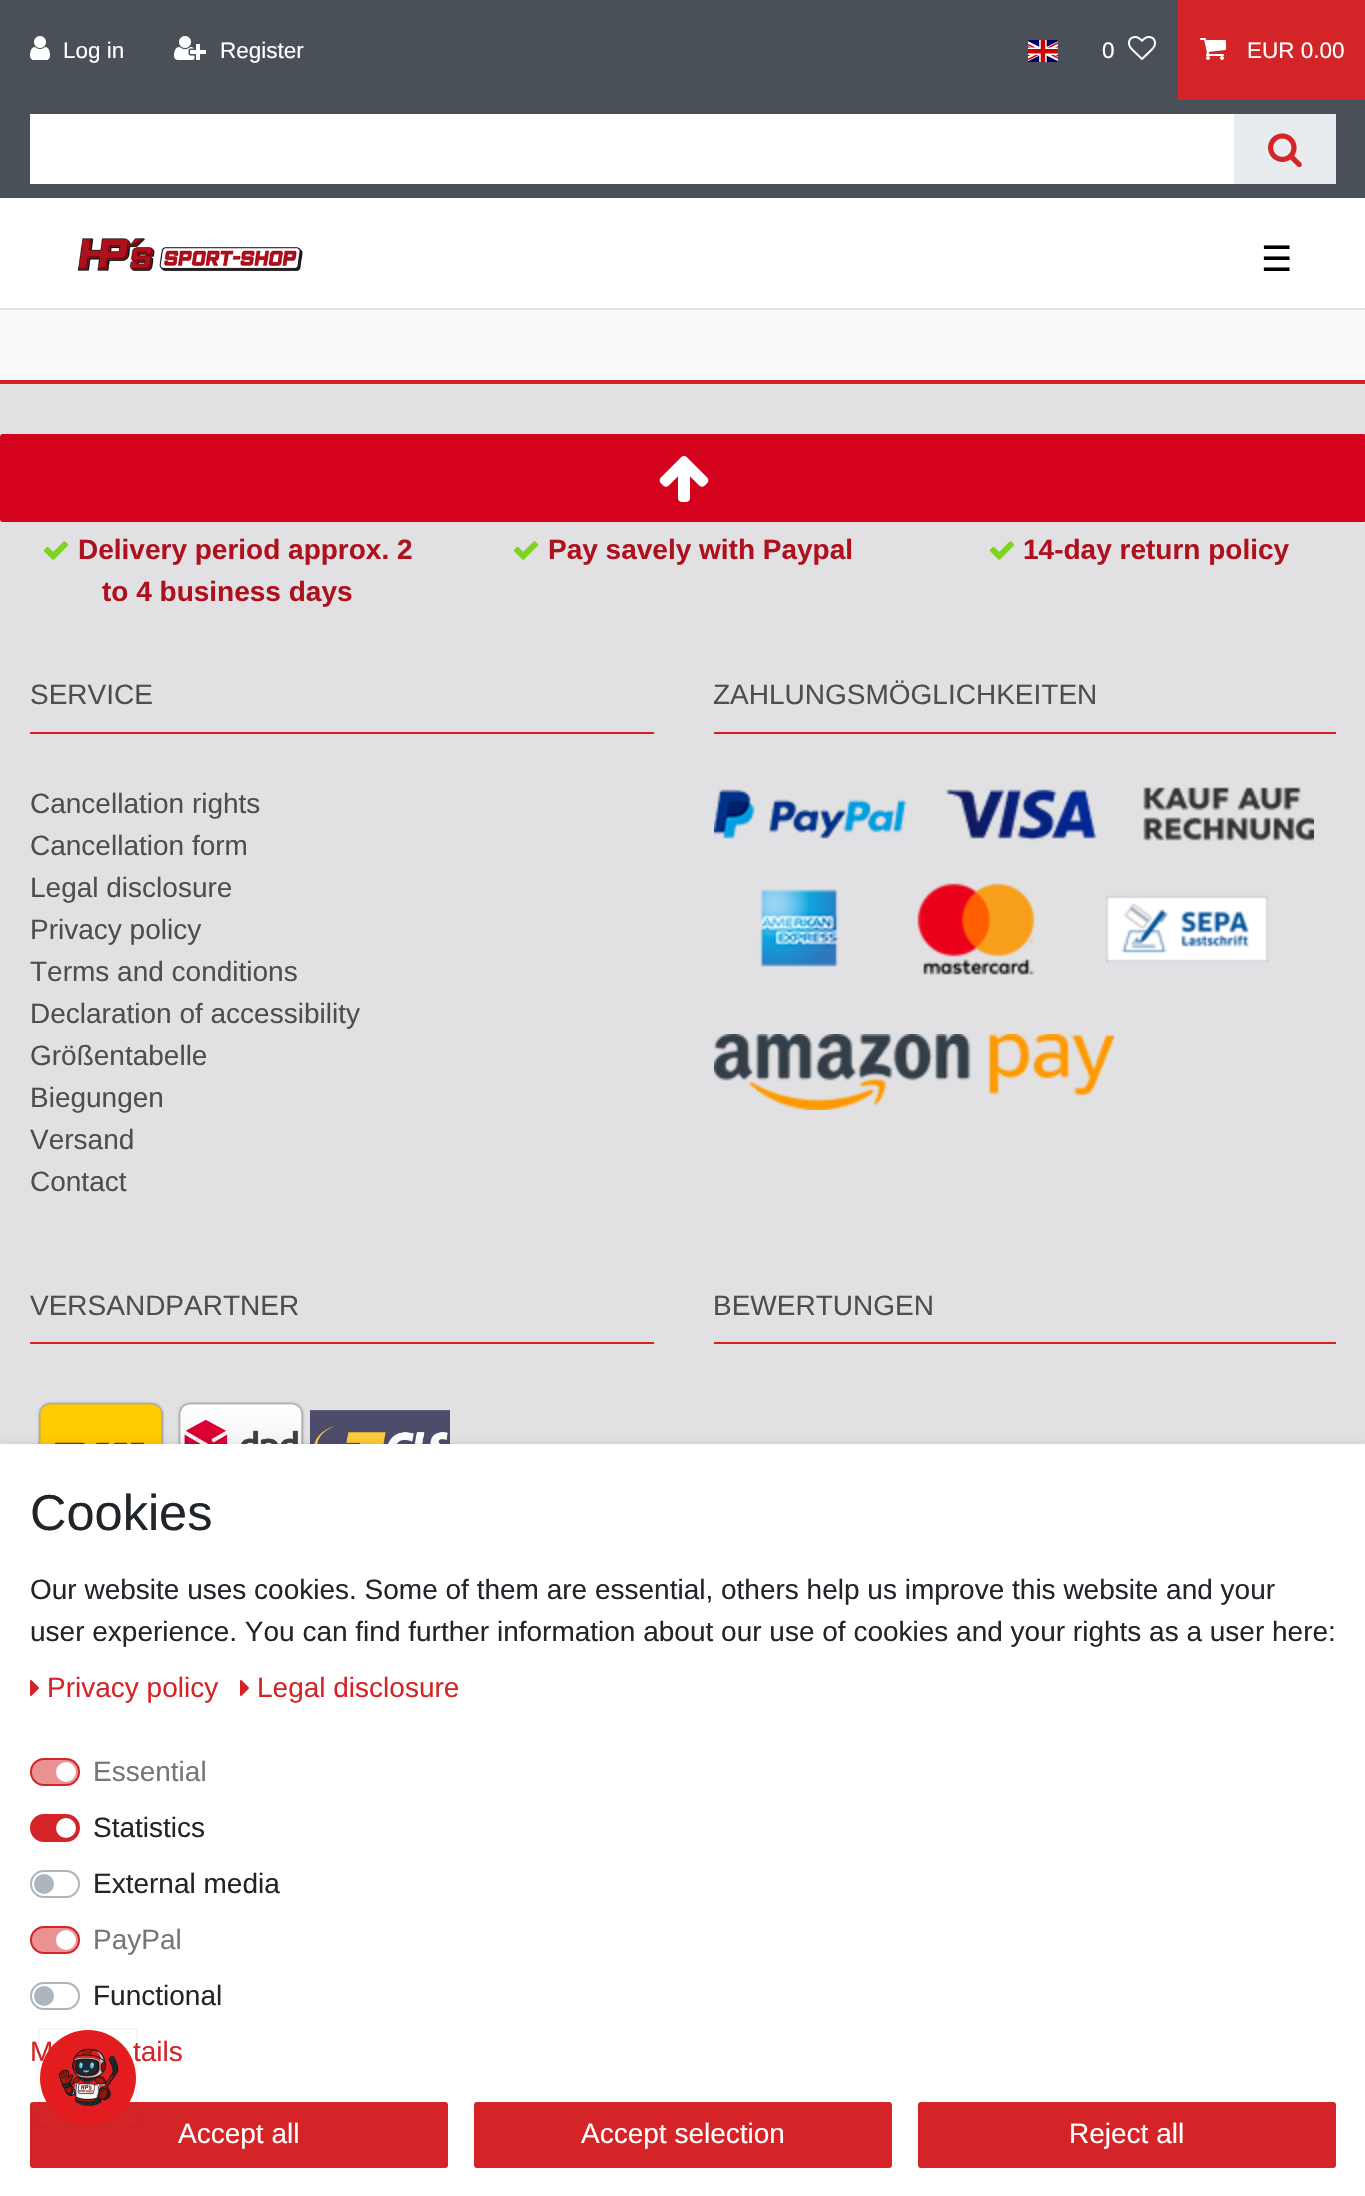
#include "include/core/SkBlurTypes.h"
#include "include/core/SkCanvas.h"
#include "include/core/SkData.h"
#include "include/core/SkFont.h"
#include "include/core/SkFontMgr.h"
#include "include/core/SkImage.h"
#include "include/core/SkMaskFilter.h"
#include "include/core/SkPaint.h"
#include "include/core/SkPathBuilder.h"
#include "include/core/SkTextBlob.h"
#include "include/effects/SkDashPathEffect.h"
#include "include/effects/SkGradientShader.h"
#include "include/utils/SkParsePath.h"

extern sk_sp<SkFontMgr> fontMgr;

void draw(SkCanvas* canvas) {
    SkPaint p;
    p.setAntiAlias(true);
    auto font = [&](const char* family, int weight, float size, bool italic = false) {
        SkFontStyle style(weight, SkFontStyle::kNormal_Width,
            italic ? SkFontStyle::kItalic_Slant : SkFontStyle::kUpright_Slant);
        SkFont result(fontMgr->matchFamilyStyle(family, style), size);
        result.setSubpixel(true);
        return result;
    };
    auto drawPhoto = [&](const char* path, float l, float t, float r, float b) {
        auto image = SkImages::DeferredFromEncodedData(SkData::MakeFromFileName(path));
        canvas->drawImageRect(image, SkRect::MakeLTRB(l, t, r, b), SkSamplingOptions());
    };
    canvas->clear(0xFFF8F9FA);
    p.setColor(0xFFFFFFFF);
    canvas->drawRect(SkRect::MakeLTRB(0, 198, 1365, 308), p);
    p.setColor(0xFF495057);
    canvas->drawRect(SkRect::MakeLTRB(0, 0, 1365, 198), p);
    drawPhoto("media/1.png", 30, 36, 50, 60);
    auto font1 = font("Liberation Sans", 400, 22.5f);
    p.setColor(0xFFFFFFFF);
    canvas->drawString("Log in", 63, 58, font1, p);
    drawPhoto("media/2.png", 174, 36, 206, 60);
    canvas->drawString("Register", 220, 58, font1, p);
    drawPhoto("media/3.png", 1028, 40, 1058, 62);
    canvas->drawString("0", 1102, 58, font1, p);
    drawPhoto("media/4.png", 1128, 36, 1156, 60);
    p.setColor(0xFFD52427);
    canvas->drawRect(SkRect::MakeLTRB(1178, 0, 1365, 100), p);
    drawPhoto("media/5.png", 1200, 38, 1226, 60);
    p.setColor(0xFFFFFFFF);
    canvas->drawString("EUR 0.00", 1247, 58, font1, p);
    canvas->drawRect(SkRect::MakeLTRB(30, 114, 1234, 184), p);
    p.setColor(0xFFE9ECEF);
    canvas->drawRect(SkRect::MakeLTRB(1234, 114, 1336, 184), p);
    drawPhoto("media/6.png", 1268, 133, 1302, 168);
    drawPhoto("media/7.png", 77, 238, 303, 272);
    auto font2 = font("DejaVu Sans", 400, 35);
    p.setColor(0xFF000000);
    canvas->drawString("☰", 1261, 271, font2, p);
    {
        const struct { float l, t, r, b; SkColor color; } items[] = {
            {0, 308, 1365, 310, 0xFFDEE2E6},
            {0, 384, 1365, 1444, 0xFFE1E1E3},
            {0, 380, 1365, 384, 0xFFD6211E},
        };
        for (auto [l, t, r, b, color] : items) {
            p.setColor(color);
            canvas->drawRect(SkRect::MakeLTRB(l, t, r, b), p);
        }
    }
    p.setColor(0xFFD4021D);
    canvas->drawRoundRect(SkRect::MakeLTRB(1, 435, 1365, 521), 2, 2, p);
    p.setStyle(SkPaint::kStroke_Style);
    p.setStrokeWidth(2);
    canvas->drawRoundRect(SkRect::MakeLTRB(1, 435, 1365, 521), 2, 2, p);
    drawPhoto("media/8.png", 659, 456, 709, 502);
    drawPhoto("media/9.png", 43, 541, 69, 560);
    auto font3 = font("Liberation Sans", 700, 28);
    p.setStyle(SkPaint::kFill_Style);
    p.setColor(0xFFAE111D);
    canvas->drawString("Delivery period approx. 2", 78, 559, font3, p);
    canvas->drawString("to 4 business days", 102, 601, font3, p);
    drawPhoto("media/9.png", 513, 541, 539, 560);
    canvas->drawString("Pay savely with Paypal", 548, 559, font3, p);
    drawPhoto("media/9.png", 989, 541, 1015, 560);
    canvas->drawString("14-day return policy", 1023, 559, font3, p);
    p.setColor(0xFFD6211E);
    canvas->drawRect(SkRect::MakeLTRB(30, 732, 654, 734), p);
    auto font4 = font("Liberation Sans", 400, 28);
    p.setColor(0xFF4D4F4D);
    {
        const struct { const char* s; float x, y; } items[] = {
            {"SERVICE", 30, 704},
            {"Cancellation rights", 30, 813},
            {"Cancellation form", 30, 855},
            {"Legal disclosure", 30, 897},
            {"Privacy policy", 30, 939},
            {"Terms and conditions", 30, 981},
            {"Declaration of accessibility", 30, 1023},
            {"Größentabelle", 30, 1065},
            {"Biegungen", 30, 1107},
            {"Versand", 30, 1149},
            {"Contact", 30, 1191},
        };
        for (auto [s, x, y] : items) {
            canvas->drawString(s, x, y, font4, p);
        }
    }
    p.setColor(0xFFD6211E);
    canvas->drawRect(SkRect::MakeLTRB(714, 732, 1336, 734), p);
    p.setColor(0xFF4D4F4D);
    canvas->drawString("ZAHLUNGSMÖGLICHKEITEN", 713, 704, font4, p);
    drawPhoto("media/10.png", 714, 787, 1314, 975);
    drawPhoto("media/11.png", 714, 1034, 1114, 1110);
    p.setColor(0xFFD6211E);
    canvas->drawRect(SkRect::MakeLTRB(30, 1342, 654, 1344), p);
    p.setColor(0xFF4D4F4D);
    canvas->drawString("VERSANDPARTNER", 30, 1315, font4, p);
    drawPhoto("media/12.png", 37, 1401, 165, 1444);
    drawPhoto("media/13.png", 177, 1401, 305, 1444);
    drawPhoto("media/14.png", 310, 1410, 450, 1444);
    p.setColor(0xFFD6211E);
    canvas->drawRect(SkRect::MakeLTRB(714, 1342, 1336, 1344), p);
    p.setColor(0xFF4D4F4D);
    canvas->drawString("BEWERTUNGEN", 713, 1315, font4, p);
    p.setColor(0x26000000);
    p.setMaskFilter(SkMaskFilter::MakeBlur(kNormal_SkBlurStyle, 5));
    canvas->drawRect(SkRect::MakeLTRB(0, 1446, 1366, 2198), p);
    p.setMaskFilter(nullptr);
    p.setColor(0xFFFFFFFF);
    canvas->drawRect(SkRect::MakeLTRB(0, 1444, 1365, 2196), p);
    auto font5 = font("Liberation Sans", 400, 50.5f);
    p.setColor(0xFF212529);
    canvas->drawString("Cookies", 30, 1530, font5, p);
    canvas->drawString("Our website uses cookies. Some of them are essential, others help us improve this website and your", 30, 1599, font4, p);
    canvas->drawString("user experience. You can find further information about our use of cookies and your rights as a user here:", 30, 1641, font4, p);
    drawPhoto("media/15.png", 30, 1680, 39, 1696);
    p.setColor(0xFFD52427);
    canvas->drawString("Privacy policy", 47, 1697, font4, p);
    drawPhoto("media/15.png", 240, 1680, 249, 1696);
    canvas->drawString("Legal disclosure", 257, 1697, font4, p);
    p.setColor(0xFFEA9293);
    canvas->drawRoundRect(SkRect::MakeLTRB(31, 1759, 79, 1785), 13, 13, p);
    p.setStyle(SkPaint::kStroke_Style);
    p.setColor(0xFFD52427);
    canvas->drawRoundRect(SkRect::MakeLTRB(31, 1759, 79, 1785), 13, 13, p);
    p.setStyle(SkPaint::kFill_Style);
    p.setColor(0xFF767676);
    canvas->drawString("Essential", 93, 1781, font4, p);
    p.setColor(0xFFFFFFFF);
    canvas->drawCircle(66, 1772, 10, p);
    p.setColor(0xFFD52427);
    canvas->drawRoundRect(SkRect::MakeLTRB(31, 1815, 79, 1841), 13, 13, p);
    p.setStyle(SkPaint::kStroke_Style);
    canvas->drawRoundRect(SkRect::MakeLTRB(31, 1815, 79, 1841), 13, 13, p);
    p.setStyle(SkPaint::kFill_Style);
    p.setColor(0xFF212529);
    canvas->drawString("Statistics", 93, 1837, font4, p);
    p.setColor(0xFFFFFFFF);
    canvas->drawCircle(66, 1828, 10, p);
    p.setStyle(SkPaint::kStroke_Style);
    p.setColor(0xFFADB5BD);
    canvas->drawRoundRect(SkRect::MakeLTRB(31, 1871, 79, 1897), 13, 13, p);
    p.setStyle(SkPaint::kFill_Style);
    p.setColor(0xFF212529);
    canvas->drawString("External media", 93, 1893, font4, p);
    p.setColor(0xFFADB5BD);
    canvas->drawCircle(44, 1884, 10, p);
    p.setColor(0xFFEA9293);
    canvas->drawRoundRect(SkRect::MakeLTRB(31, 1927, 79, 1953), 13, 13, p);
    p.setStyle(SkPaint::kStroke_Style);
    p.setColor(0xFFD52427);
    canvas->drawRoundRect(SkRect::MakeLTRB(31, 1927, 79, 1953), 13, 13, p);
    p.setStyle(SkPaint::kFill_Style);
    p.setColor(0xFF767676);
    canvas->drawString("PayPal", 93, 1949, font4, p);
    p.setColor(0xFFFFFFFF);
    canvas->drawCircle(66, 1940, 10, p);
    p.setStyle(SkPaint::kStroke_Style);
    p.setColor(0xFFADB5BD);
    canvas->drawRoundRect(SkRect::MakeLTRB(31, 1983, 79, 2009), 13, 13, p);
    p.setStyle(SkPaint::kFill_Style);
    p.setColor(0xFF212529);
    canvas->drawString("Functional", 93, 2005, font4, p);
    p.setColor(0xFFADB5BD);
    canvas->drawCircle(44, 1996, 10, p);
    p.setColor(0xFFD52427);
    canvas->drawString("M", 30, 2061, font4, p);
    canvas->drawString("tails", 133, 2061, font4, p);
    canvas->drawRoundRect(SkRect::MakeLTRB(31, 2103, 447, 2167), 2, 2, p);
    p.setStyle(SkPaint::kStroke_Style);
    canvas->drawRoundRect(SkRect::MakeLTRB(31, 2103, 447, 2167), 2, 2, p);
    p.setStyle(SkPaint::kFill_Style);
    p.setColor(0xFFFFFFFF);
    canvas->drawString("Accept all", 178, 2143, font4, p);
    p.setColor(0xFFD52427);
    canvas->drawRoundRect(SkRect::MakeLTRB(475, 2103, 891, 2167), 2, 2, p);
    p.setStyle(SkPaint::kStroke_Style);
    canvas->drawRoundRect(SkRect::MakeLTRB(475, 2103, 891, 2167), 2, 2, p);
    p.setStyle(SkPaint::kFill_Style);
    p.setColor(0xFFFFFFFF);
    canvas->drawString("Accept selection", 581, 2143, font4, p);
    p.setColor(0xFFD52427);
    canvas->drawRoundRect(SkRect::MakeLTRB(919, 2103, 1335, 2167), 2, 2, p);
    p.setStyle(SkPaint::kStroke_Style);
    canvas->drawRoundRect(SkRect::MakeLTRB(919, 2103, 1335, 2167), 2, 2, p);
    p.setStyle(SkPaint::kFill_Style);
    p.setColor(0xFFFFFFFF);
    canvas->drawString("Reject all", 1069, 2143, font4, p);
    p.setColor(0x14161A1E);
    p.setMaskFilter(SkMaskFilter::MakeBlur(kNormal_SkBlurStyle, 8));
    canvas->drawRoundRect(SkRect::MakeLTRB(52, 2050, 124, 2122), 36, 36, p);
    p.setMaskFilter(nullptr);
    p.setStyle(SkPaint::kStroke_Style);
    p.setColor(0x0A161A1E);
    canvas->drawRect(SkRect::MakeLTRB(39, 2029, 137, 2127), p);
    p.setStyle(SkPaint::kFill_Style);
    p.setColor(0xFFE31C1F);
    canvas->drawCircle(88, 2078, 48, p);
    drawPhoto("media/16.png", 58, 2048, 119, 2106);
}
